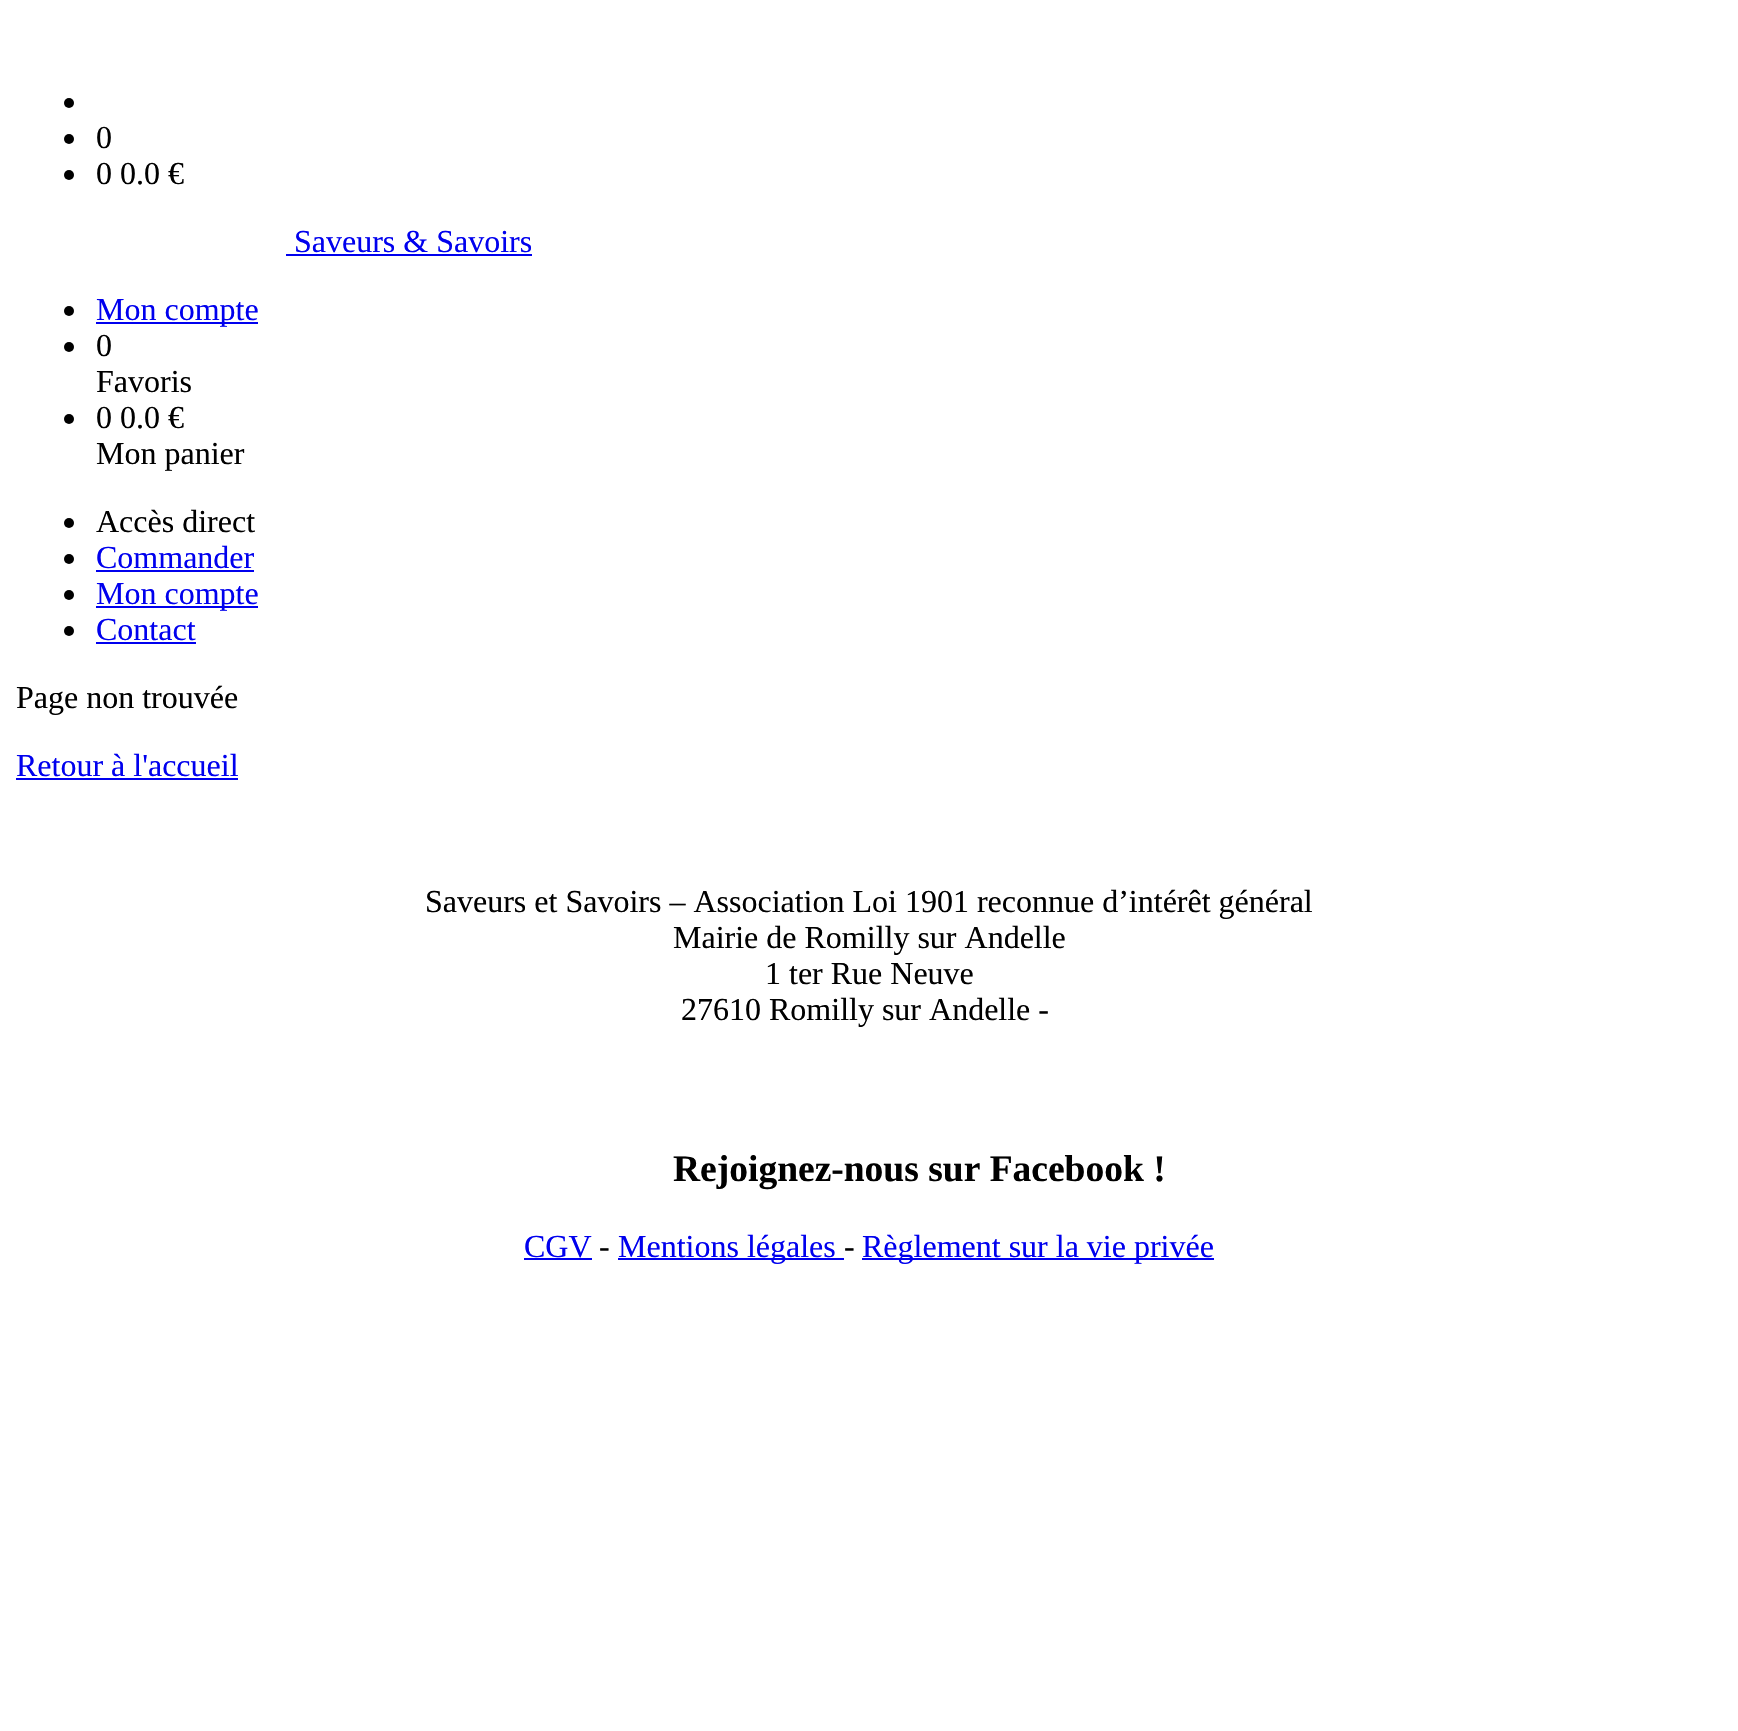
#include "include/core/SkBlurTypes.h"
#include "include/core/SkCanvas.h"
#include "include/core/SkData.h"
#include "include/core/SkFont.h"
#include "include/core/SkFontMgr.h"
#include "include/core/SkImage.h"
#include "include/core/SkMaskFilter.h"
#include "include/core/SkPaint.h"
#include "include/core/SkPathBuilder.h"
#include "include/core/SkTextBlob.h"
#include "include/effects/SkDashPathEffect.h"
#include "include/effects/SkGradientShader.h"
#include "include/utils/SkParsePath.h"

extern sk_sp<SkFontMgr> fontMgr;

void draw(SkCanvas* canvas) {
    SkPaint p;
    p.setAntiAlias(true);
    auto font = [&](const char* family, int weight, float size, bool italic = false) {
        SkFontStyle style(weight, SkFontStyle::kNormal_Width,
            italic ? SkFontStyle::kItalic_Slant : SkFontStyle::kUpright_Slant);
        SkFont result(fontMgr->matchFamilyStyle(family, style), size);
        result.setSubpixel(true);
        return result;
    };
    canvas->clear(0xFFFFFFFF);
    p.setColor(0xFF000000);
    canvas->drawCircle(69, 103, 5, p);
    canvas->drawCircle(69, 139, 5, p);
    auto font1 = font("Liberation Serif", 400, 32);
    canvas->drawString("0", 96, 148, font1, p);
    canvas->drawCircle(69, 175, 5, p);
    canvas->drawString("0 0.0 €", 96, 184, font1, p);
    p.setColor(0xFF0000EE);
    canvas->drawString("Saveurs & Savoirs", 294, 252, font1, p);
    canvas->drawRect(SkRect::MakeLTRB(286, 254, 532, 256), p);
    p.setColor(0xFF000000);
    canvas->drawCircle(69, 311, 5, p);
    p.setColor(0xFF0000EE);
    canvas->drawRect(SkRect::MakeLTRB(96, 322, 258, 324), p);
    canvas->drawString("Mon compte", 96, 320, font1, p);
    p.setColor(0xFF000000);
    canvas->drawCircle(69, 347, 5, p);
    canvas->drawString("0", 96, 356, font1, p);
    canvas->drawString("Favoris", 96, 392, font1, p);
    canvas->drawCircle(69, 419, 5, p);
    canvas->drawString("0 0.0 €", 96, 428, font1, p);
    canvas->drawString("Mon panier", 96, 464, font1, p);
    canvas->drawCircle(69, 523, 5, p);
    canvas->drawString("Accès direct", 96, 532, font1, p);
    canvas->drawCircle(69, 559, 5, p);
    p.setColor(0xFF0000EE);
    canvas->drawString("Commander", 96, 568, font1, p);
    canvas->drawRect(SkRect::MakeLTRB(96, 570, 254, 572), p);
    p.setColor(0xFF000000);
    canvas->drawCircle(69, 595, 5, p);
    p.setColor(0xFF0000EE);
    canvas->drawRect(SkRect::MakeLTRB(96, 606, 258, 608), p);
    canvas->drawString("Mon compte", 96, 604, font1, p);
    p.setColor(0xFF000000);
    canvas->drawCircle(69, 631, 5, p);
    p.setColor(0xFF0000EE);
    canvas->drawString("Contact", 96, 640, font1, p);
    canvas->drawRect(SkRect::MakeLTRB(96, 642, 196, 644), p);
    p.setColor(0xFF000000);
    canvas->drawString("Page non trouvée", 16, 708, font1, p);
    p.setColor(0xFF0000EE);
    canvas->drawString("Retour à l'accueil", 16, 776, font1, p);
    canvas->drawRect(SkRect::MakeLTRB(16, 778, 238, 780), p);
    p.setColor(0xFF000000);
    {
        const struct { const char* s; float x, y; } items[] = {
            {"Saveurs et Savoirs – Association Loi 1901 reconnue d’intérêt général", 425, 912},
            {"Mairie de Romilly sur Andelle", 673, 948},
            {"1 ter Rue Neuve", 765, 984},
            {"27610 Romilly sur Andelle -", 681, 1020},
        };
        for (auto [s, x, y] : items) {
            canvas->drawString(s, x, y, font1, p);
        }
    }
    auto font2 = font("Liberation Serif", 700, 37.5f);
    canvas->drawString("Rejoignez-nous sur Facebook !", 673, 1181, font2, p);
    p.setColor(0xFF0000EE);
    canvas->drawString("CGV", 524, 1257, font1, p);
    canvas->drawRect(SkRect::MakeLTRB(524, 1258, 592, 1260), p);
    p.setColor(0xFF000000);
    canvas->drawString("-", 599, 1257, font1, p);
    p.setColor(0xFF0000EE);
    canvas->drawRect(SkRect::MakeLTRB(618, 1258, 844, 1260), p);
    canvas->drawString("Mentions légales", 618, 1257, font1, p);
    p.setColor(0xFF000000);
    canvas->drawString("-", 844, 1257, font1, p);
    p.setColor(0xFF0000EE);
    canvas->drawRect(SkRect::MakeLTRB(862, 1258, 1214, 1260), p);
    canvas->drawString("Règlement sur la vie privée", 862, 1257, font1, p);
}
